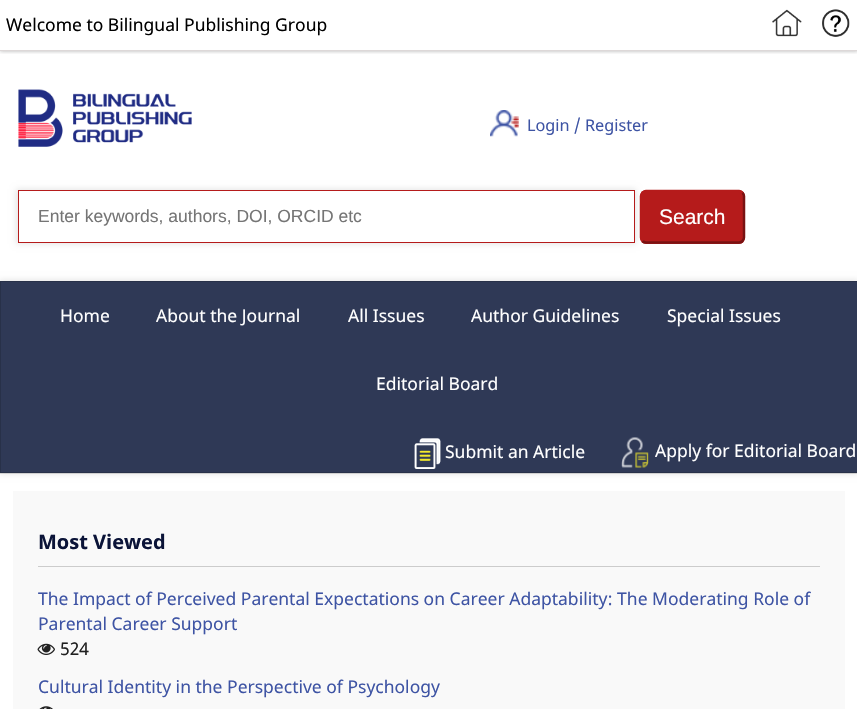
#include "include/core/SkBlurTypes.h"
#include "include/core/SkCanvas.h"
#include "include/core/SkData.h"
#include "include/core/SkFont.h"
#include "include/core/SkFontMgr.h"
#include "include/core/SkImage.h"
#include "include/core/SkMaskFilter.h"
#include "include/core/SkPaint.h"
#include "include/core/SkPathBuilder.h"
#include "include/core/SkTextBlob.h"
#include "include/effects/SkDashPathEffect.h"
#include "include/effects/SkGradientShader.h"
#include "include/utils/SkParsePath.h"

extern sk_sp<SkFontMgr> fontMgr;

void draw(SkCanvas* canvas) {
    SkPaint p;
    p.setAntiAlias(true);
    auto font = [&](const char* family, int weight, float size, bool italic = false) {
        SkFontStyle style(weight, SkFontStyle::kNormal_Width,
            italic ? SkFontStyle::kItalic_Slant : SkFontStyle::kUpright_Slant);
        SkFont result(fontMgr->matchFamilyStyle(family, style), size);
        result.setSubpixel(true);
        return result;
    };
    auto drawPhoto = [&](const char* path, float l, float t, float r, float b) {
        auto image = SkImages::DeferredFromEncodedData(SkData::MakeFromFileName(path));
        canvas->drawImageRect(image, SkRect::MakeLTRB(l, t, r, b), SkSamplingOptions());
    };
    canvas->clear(0xFFFFFFFF);
    canvas->save();
    canvas->clipRect(SkRect::MakeLTRB(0, 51, 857, 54));
    p.setColor(0x4D000000);
    p.setMaskFilter(SkMaskFilter::MakeBlur(kNormal_SkBlurStyle, 2));
    canvas->drawRect(SkRect::MakeLTRB(0, 0, 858, 51), p);
    p.setMaskFilter(nullptr);
    canvas->restore();
    p.setColor(0xFFDDD8D8);
    canvas->drawRect(SkRect::MakeLTRB(0, 50, 857, 51), p);
    auto font1 = font("Noto Sans", 400, 17.5f);
    p.setColor(0xFF000000);
    canvas->drawString("Welcome to Bilingual Publishing Group", 6, 31, font1, p);
    drawPhoto("media/1.png", 772, 9, 802, 37);
    drawPhoto("media/2.png", 822, 9, 850, 37);
    drawPhoto("media/3.png", 18, 89, 192, 147);
    drawPhoto("media/4.png", 490, 110, 519, 137);
    auto font2 = font("Noto Sans", 400, 16.25f);
    p.setColor(0xFF3E54A4);
    canvas->drawString("Login / Register", 527, 131, font2, p);
    p.setColor(0x1A000000);
    p.setMaskFilter(SkMaskFilter::MakeBlur(kNormal_SkBlurStyle, 3));
    canvas->drawRect(SkRect::MakeLTRB(16, 189, 636, 244), p);
    p.setMaskFilter(nullptr);
    p.setColor(0xFFFFFFFF);
    canvas->drawRect(SkRect::MakeLTRB(18.5f, 190.5f, 634.5f, 242.5f), p);
    p.setStyle(SkPaint::kStroke_Style);
    p.setStrokeWidth(1);
    p.setColor(0xFFB51B1B);
    canvas->drawRect(SkRect::MakeLTRB(18.5f, 190.5f, 634.5f, 242.5f), p);
    auto font3 = font("Liberation Sans", 400, 17.5f);
    p.setStyle(SkPaint::kFill_Style);
    p.setColor(0xFF757575);
    canvas->drawString("Enter keywords, authors, DOI, ORCID etc", 38, 222, font3, p);
    p.setColor(0xFFB51B1B);
    canvas->drawRoundRect(SkRect::MakeLTRB(640, 190, 745, 244), 6, 6, p);
    p.setStyle(SkPaint::kStroke_Style);
    p.setStrokeWidth(2.5f);
    p.setColor(0xFF791212);
    canvas->drawPath(SkPathBuilder().moveTo(742.5f, 192.5f).cubicTo(743, 193.5f, 744, 195, 744, 196).lineTo(744, 237.5f).cubicTo(744, 239, 743, 240, 742.5f, 241).cubicTo(741.5f, 242, 740, 242.5f, 739, 242.5f).lineTo(646, 242.5f).cubicTo(645, 242.5f, 643.5f, 242, 642.5f, 241).detach(), p);
    p.setColor(0xFFB51B1B);
    canvas->drawPath(SkPathBuilder().moveTo(642.5f, 241).cubicTo(642, 240, 641, 239, 641, 237.5f).lineTo(641, 196).cubicTo(641, 195, 642, 193.5f, 642.5f, 192.5f).cubicTo(643.5f, 192, 645, 191, 646, 191).lineTo(739, 191).cubicTo(740, 191, 741.5f, 192, 742.5f, 192.5f).detach(), p);
    auto font4 = font("Liberation Sans", 400, 21);
    p.setStyle(SkPaint::kFill_Style);
    p.setColor(0xFFFFFFFF);
    canvas->drawString("Search", 659, 224, font4, p);
    p.setColor(0xFFDDDDDD);
    canvas->drawRect(SkRect::MakeLTRB(0, 473, 857, 474), p);
    p.setColor(0xFF2F3956);
    canvas->drawRect(SkRect::MakeLTRB(0, 281, 857, 473), p);
    canvas->save();
    canvas->clipPath(SkPathBuilder(SkPathFillType::kEvenOdd).moveTo(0, 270).lineTo(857, 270).lineTo(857, 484).lineTo(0, 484).close().moveTo(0, 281).lineTo(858, 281).lineTo(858, 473).lineTo(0, 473).close().detach(), true);
    p.setColor(0x1A000000);
    p.setMaskFilter(SkMaskFilter::MakeBlur(kNormal_SkBlurStyle, 3));
    canvas->drawRect(SkRect::MakeLTRB(-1, 280, 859, 474), p);
    p.setMaskFilter(nullptr);
    canvas->restore();
    p.setStyle(SkPaint::kStroke_Style);
    p.setStrokeWidth(1);
    p.setColor(0x26000000);
    canvas->drawRect(SkRect::MakeLTRB(0.5f, 281.5f, 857.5f, 472.5f), p);
    p.setStyle(SkPaint::kFill_Style);
    p.setColor(0xFFFFFFFF);
    {
        const struct { const char* s; float x, y; } items[] = {
            {"Home", 60, 322},
            {"About the Journal", 156, 322},
            {"All Issues", 348, 322},
            {"Author Guidelines", 471, 322},
            {"Special Issues", 667, 322},
            {"Editorial Board", 376, 390},
        };
        for (auto [s, x, y] : items) {
            canvas->drawString(s, x, y, font1, p);
        }
    }
    drawPhoto("media/5.png", 414, 438, 441, 469);
    canvas->drawString("Submit an Article", 445, 458, font1, p);
    drawPhoto("media/6.png", 621, 437, 649, 468);
    canvas->drawString("Apply for Editorial Board", 655, 457, font1, p);
    p.setColor(0xFFF9F9F9);
    canvas->drawRect(SkRect::MakeLTRB(13, 491, 845, 709), p);
    p.setColor(0xFFCCCCCC);
    canvas->drawRect(SkRect::MakeLTRB(38, 566, 820, 567), p);
    auto font5 = font("Noto Sans", 700, 20);
    p.setColor(0xFF0B1438);
    canvas->drawString("Most Viewed", 38, 549, font5, p);
    p.setColor(0xFF3E54A4);
    canvas->drawString("The Impact of Perceived Parental Expectations on Career Adaptability: The Moderating Role of", 38, 605, font1, p);
    canvas->drawString("Parental Career Support", 38, 630, font1, p);
    drawPhoto("media/7.png", 37, 643, 55, 655);
    p.setColor(0xFF202020);
    canvas->drawString("524", 60, 655, font1, p);
    p.setColor(0xFF3E54A4);
    canvas->drawString("Cultural Identity in the Perspective of Psychology", 38, 693, font1, p);
    drawPhoto("media/8.png", 39, 706, 53, 709);
}
